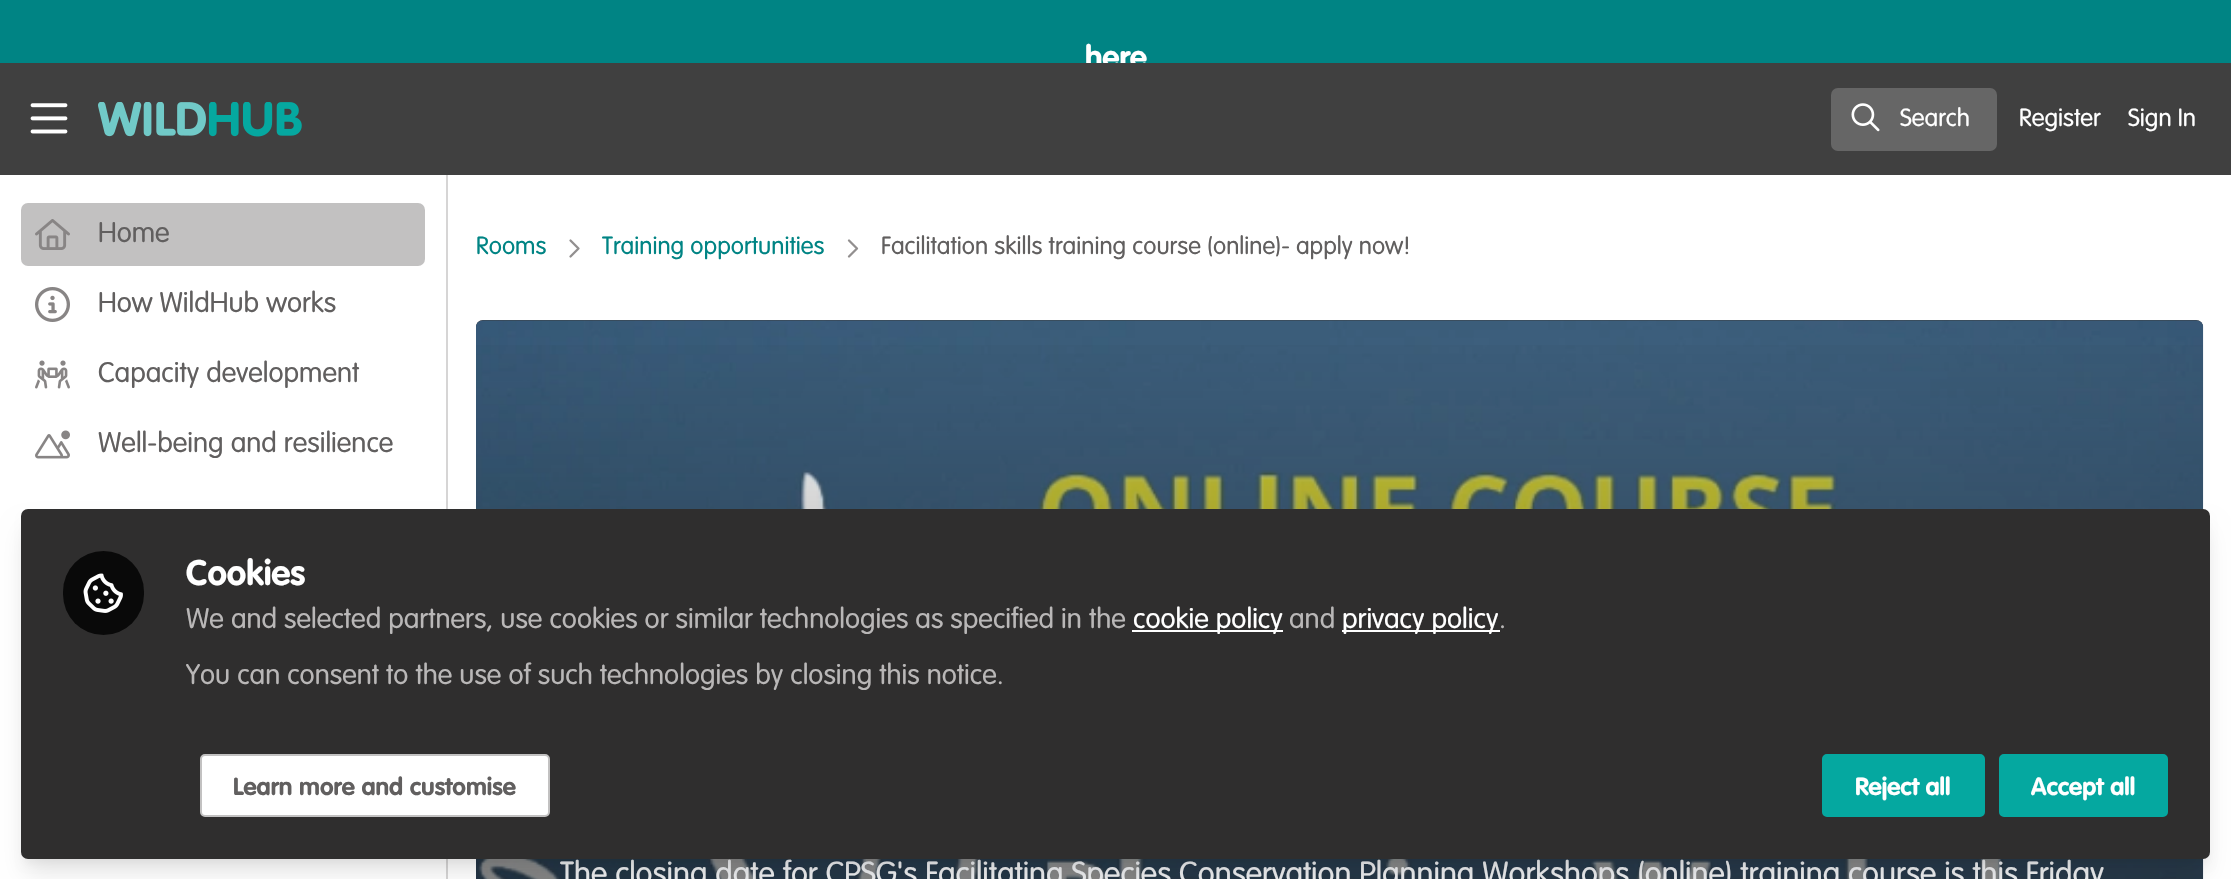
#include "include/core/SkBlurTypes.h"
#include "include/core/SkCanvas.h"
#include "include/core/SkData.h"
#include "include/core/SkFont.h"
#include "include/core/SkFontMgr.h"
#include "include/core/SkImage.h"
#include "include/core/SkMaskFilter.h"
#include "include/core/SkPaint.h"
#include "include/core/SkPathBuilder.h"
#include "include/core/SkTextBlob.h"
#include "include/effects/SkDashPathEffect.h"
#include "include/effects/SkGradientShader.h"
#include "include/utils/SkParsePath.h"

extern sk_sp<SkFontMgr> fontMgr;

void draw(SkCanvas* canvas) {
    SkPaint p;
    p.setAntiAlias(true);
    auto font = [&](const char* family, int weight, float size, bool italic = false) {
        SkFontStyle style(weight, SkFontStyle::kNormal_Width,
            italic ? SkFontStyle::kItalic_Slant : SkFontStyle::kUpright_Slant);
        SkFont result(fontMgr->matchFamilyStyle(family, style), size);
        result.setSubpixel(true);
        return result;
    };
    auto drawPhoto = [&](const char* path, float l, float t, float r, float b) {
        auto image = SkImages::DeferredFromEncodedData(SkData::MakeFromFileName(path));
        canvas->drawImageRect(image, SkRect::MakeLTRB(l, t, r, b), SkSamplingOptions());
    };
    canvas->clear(0xFFFFFFFF);
    p.setColor(0xFF008484);
    canvas->drawRect(SkRect::MakeLTRB(0, 0, 2231, 63), p);
    auto font1 = font("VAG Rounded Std", 700, 31.5f);
    p.setColor(0xFFFFFFFF);
    canvas->drawString("here", 1085, 68, font1, p);
    p.setColor(0xFF404040);
    canvas->drawRect(SkRect::MakeLTRB(0, 63, 2231, 175), p);
    drawPhoto("media/1.png", 30, 103, 68, 134);
    drawPhoto("media/2.png", 98, 102, 302, 137);
    p.setColor(0xFF666666);
    canvas->drawRoundRect(SkRect::MakeLTRB(1831, 88, 1997, 151), 7, 7, p);
    drawPhoto("media/3.png", 1851, 103, 1880, 132);
    auto font2 = font("VAG Rounded Std", 300, 24.5f);
    p.setColor(0xFFFFFFFF);
    {
        const struct { const char* s; float x, y; } items[] = {
            {"Search", 1900, 126},
            {"Register", 2019, 126},
            {"Sign In", 2128, 126},
        };
        for (auto [s, x, y] : items) {
            canvas->drawString(s, x, y, font2, p);
        }
    }
    p.setColor(0xFFD6D5D5);
    canvas->drawRect(SkRect::MakeLTRB(446, 175, 448, 879), p);
    p.setColor(0xFFC2C1C1);
    canvas->drawRoundRect(SkRect::MakeLTRB(21, 203, 425, 266), 7, 7, p);
    drawPhoto("media/4.png", 35, 219, 70, 250);
    auto font3 = font("VAG Rounded Std", 300, 28);
    p.setColor(0xFF615F5F);
    canvas->drawString("Home", 98, 242, font3, p);
    drawPhoto("media/5.png", 35, 287, 70, 322);
    canvas->drawString("How WildHub works", 98, 312, font3, p);
    drawPhoto("media/6.png", 35, 360, 70, 389);
    canvas->drawString("Capacity development", 98, 382, font3, p);
    drawPhoto("media/7.png", 35, 430, 70, 459);
    canvas->drawString("Well-being and resilience", 98, 452, font3, p);
    p.setColor(0xFF008484);
    canvas->drawString("Rooms", 476, 254, font2, p);
    p.setStyle(SkPaint::kStroke_Style);
    p.setStrokeWidth(2.3f);
    p.setStrokeCap(SkPaint::kRound_Cap);
    p.setStrokeJoin(SkPaint::kRound_Join);
    p.setColor(0xFF928F8F);
    canvas->drawPath(SkPathBuilder().moveTo(570.5f, 240.5f).lineTo(578.5f, 248.5f).lineTo(570.5f, 256.5f).detach(), p);
    p.setStyle(SkPaint::kFill_Style);
    p.setColor(0xFF008484);
    canvas->drawString("Training opportunities", 602, 254, font2, p);
    p.setStyle(SkPaint::kStroke_Style);
    p.setColor(0xFF928F8F);
    canvas->drawPath(SkPathBuilder().moveTo(849, 240.5f).lineTo(857, 248.5f).lineTo(849, 256.5f).detach(), p);
    p.setStyle(SkPaint::kFill_Style);
    p.setColor(0xFF615F5F);
    canvas->drawString("Facilitation skills training course (online)- apply now!", 881, 254, font2, p);
    p.setColor(0xFF393838);
    canvas->drawPath(SkPathBuilder().moveTo(483, 320).lineTo(2196, 320).cubicTo(2200, 320, 2203, 323, 2203, 327).lineTo(2203, 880).lineTo(476, 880).lineTo(476, 327).cubicTo(476, 323, 479, 320, 483, 320).close().detach(), p);
    drawPhoto("media/8.png", 476, 320, 2204, 879);
    {
        const SkColor colors[] = {0x00000000, 0xCC000000};
        const float stops[] = {0, 1};
        const SkPoint ends[] = {{1340, 320}, {1340, 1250}};
        p.setShader(SkGradientShader::MakeLinear(ends, colors, stops, 2, SkTileMode::kClamp));
        p.setAlpha(255);
    }
    canvas->drawRect(SkRect::MakeLTRB(476, 345, 2203, 879), p);
    auto font4 = font("VAG Rounded Std", 300, 31.5f);
    p.setShader(nullptr);
    p.setColor(0xFFEBECEE);
    canvas->drawString("The closing date for CPSG's Facilitating Species Conservation Planning Workshops (online) training course is this Friday", 560, 884, font4, p);
    p.setColor(0x0D000000);
    p.setMaskFilter(SkMaskFilter::MakeBlur(kNormal_SkBlurStyle, 5));
    canvas->drawRoundRect(SkRect::MakeLTRB(25, 520, 2207, 863), 4, 4, p);
    p.setMaskFilter(nullptr);
    p.setColor(0x1A000000);
    p.setMaskFilter(SkMaskFilter::MakeBlur(kNormal_SkBlurStyle, 13));
    canvas->drawRoundRect(SkRect::MakeLTRB(26, 532, 2205, 872), 2, 2, p);
    p.setMaskFilter(nullptr);
    p.setColor(0xFF2F2E2E);
    canvas->drawRoundRect(SkRect::MakeLTRB(21, 509, 2210, 859), 7, 7, p);
    p.setColor(0xFF090909);
    canvas->drawRoundRect(SkRect::MakeLTRB(63, 551, 144, 635), 40.5f, 40.5f, p);
    drawPhoto("media/9.png", 83, 573, 123, 613);
    auto font5 = font("VAG Rounded Std", 700, 35);
    p.setColor(0xFFFFFFFF);
    canvas->drawString("Cookies", 186, 585, font5, p);
    p.setColor(0xFFB9B7B7);
    canvas->drawString("We and selected partners, use cookies or similar technologies as specified in the", 186, 628, font3, p);
    p.setColor(0xFFFFFFFF);
    canvas->drawRect(SkRect::MakeLTRB(1132, 630, 1283, 632), p);
    canvas->drawString("cookie policy", 1133, 628, font3, p);
    p.setColor(0xFFB9B7B7);
    canvas->drawString("and", 1289, 628, font3, p);
    p.setColor(0xFFFFFFFF);
    canvas->drawRect(SkRect::MakeLTRB(1342, 630, 1500, 632), p);
    canvas->drawString("privacy policy", 1342, 628, font3, p);
    p.setColor(0xFFB9B7B7);
    canvas->drawString(".", 1499, 628, font3, p);
    canvas->drawString("You can consent to the use of such technologies by closing this notice.", 186, 684, font3, p);
    p.setColor(0xFFFFFFFF);
    canvas->drawRoundRect(SkRect::MakeLTRB(201, 755, 549, 816), 4, 4, p);
    p.setStyle(SkPaint::kStroke_Style);
    p.setStrokeWidth(2);
    p.setStrokeCap(SkPaint::kButt_Cap);
    p.setStrokeJoin(SkPaint::kMiter_Join);
    p.setColor(0xFFC2C1C1);
    canvas->drawRoundRect(SkRect::MakeLTRB(201, 755, 549, 816), 4, 4, p);
    auto font6 = font("VAG Rounded Std", 700, 24.5f);
    p.setStyle(SkPaint::kFill_Style);
    p.setColor(0xFF615F5F);
    canvas->drawString("Learn more and customise", 233, 795, font6, p);
    p.setColor(0xFF05A8A0);
    canvas->drawRoundRect(SkRect::MakeLTRB(1823, 755, 1984, 816), 4, 4, p);
    p.setStyle(SkPaint::kStroke_Style);
    canvas->drawRoundRect(SkRect::MakeLTRB(1823, 755, 1984, 816), 4, 4, p);
    p.setStyle(SkPaint::kFill_Style);
    p.setColor(0xFFFFFFFF);
    canvas->drawString("Reject all", 1855, 795, font6, p);
    p.setColor(0xFF05A8A0);
    canvas->drawRoundRect(SkRect::MakeLTRB(2000, 755, 2167, 816), 4, 4, p);
    p.setStyle(SkPaint::kStroke_Style);
    canvas->drawRoundRect(SkRect::MakeLTRB(2000, 755, 2167, 816), 4, 4, p);
    p.setStyle(SkPaint::kFill_Style);
    p.setColor(0xFFFFFFFF);
    canvas->drawString("Accept all", 2031, 795, font6, p);
}
